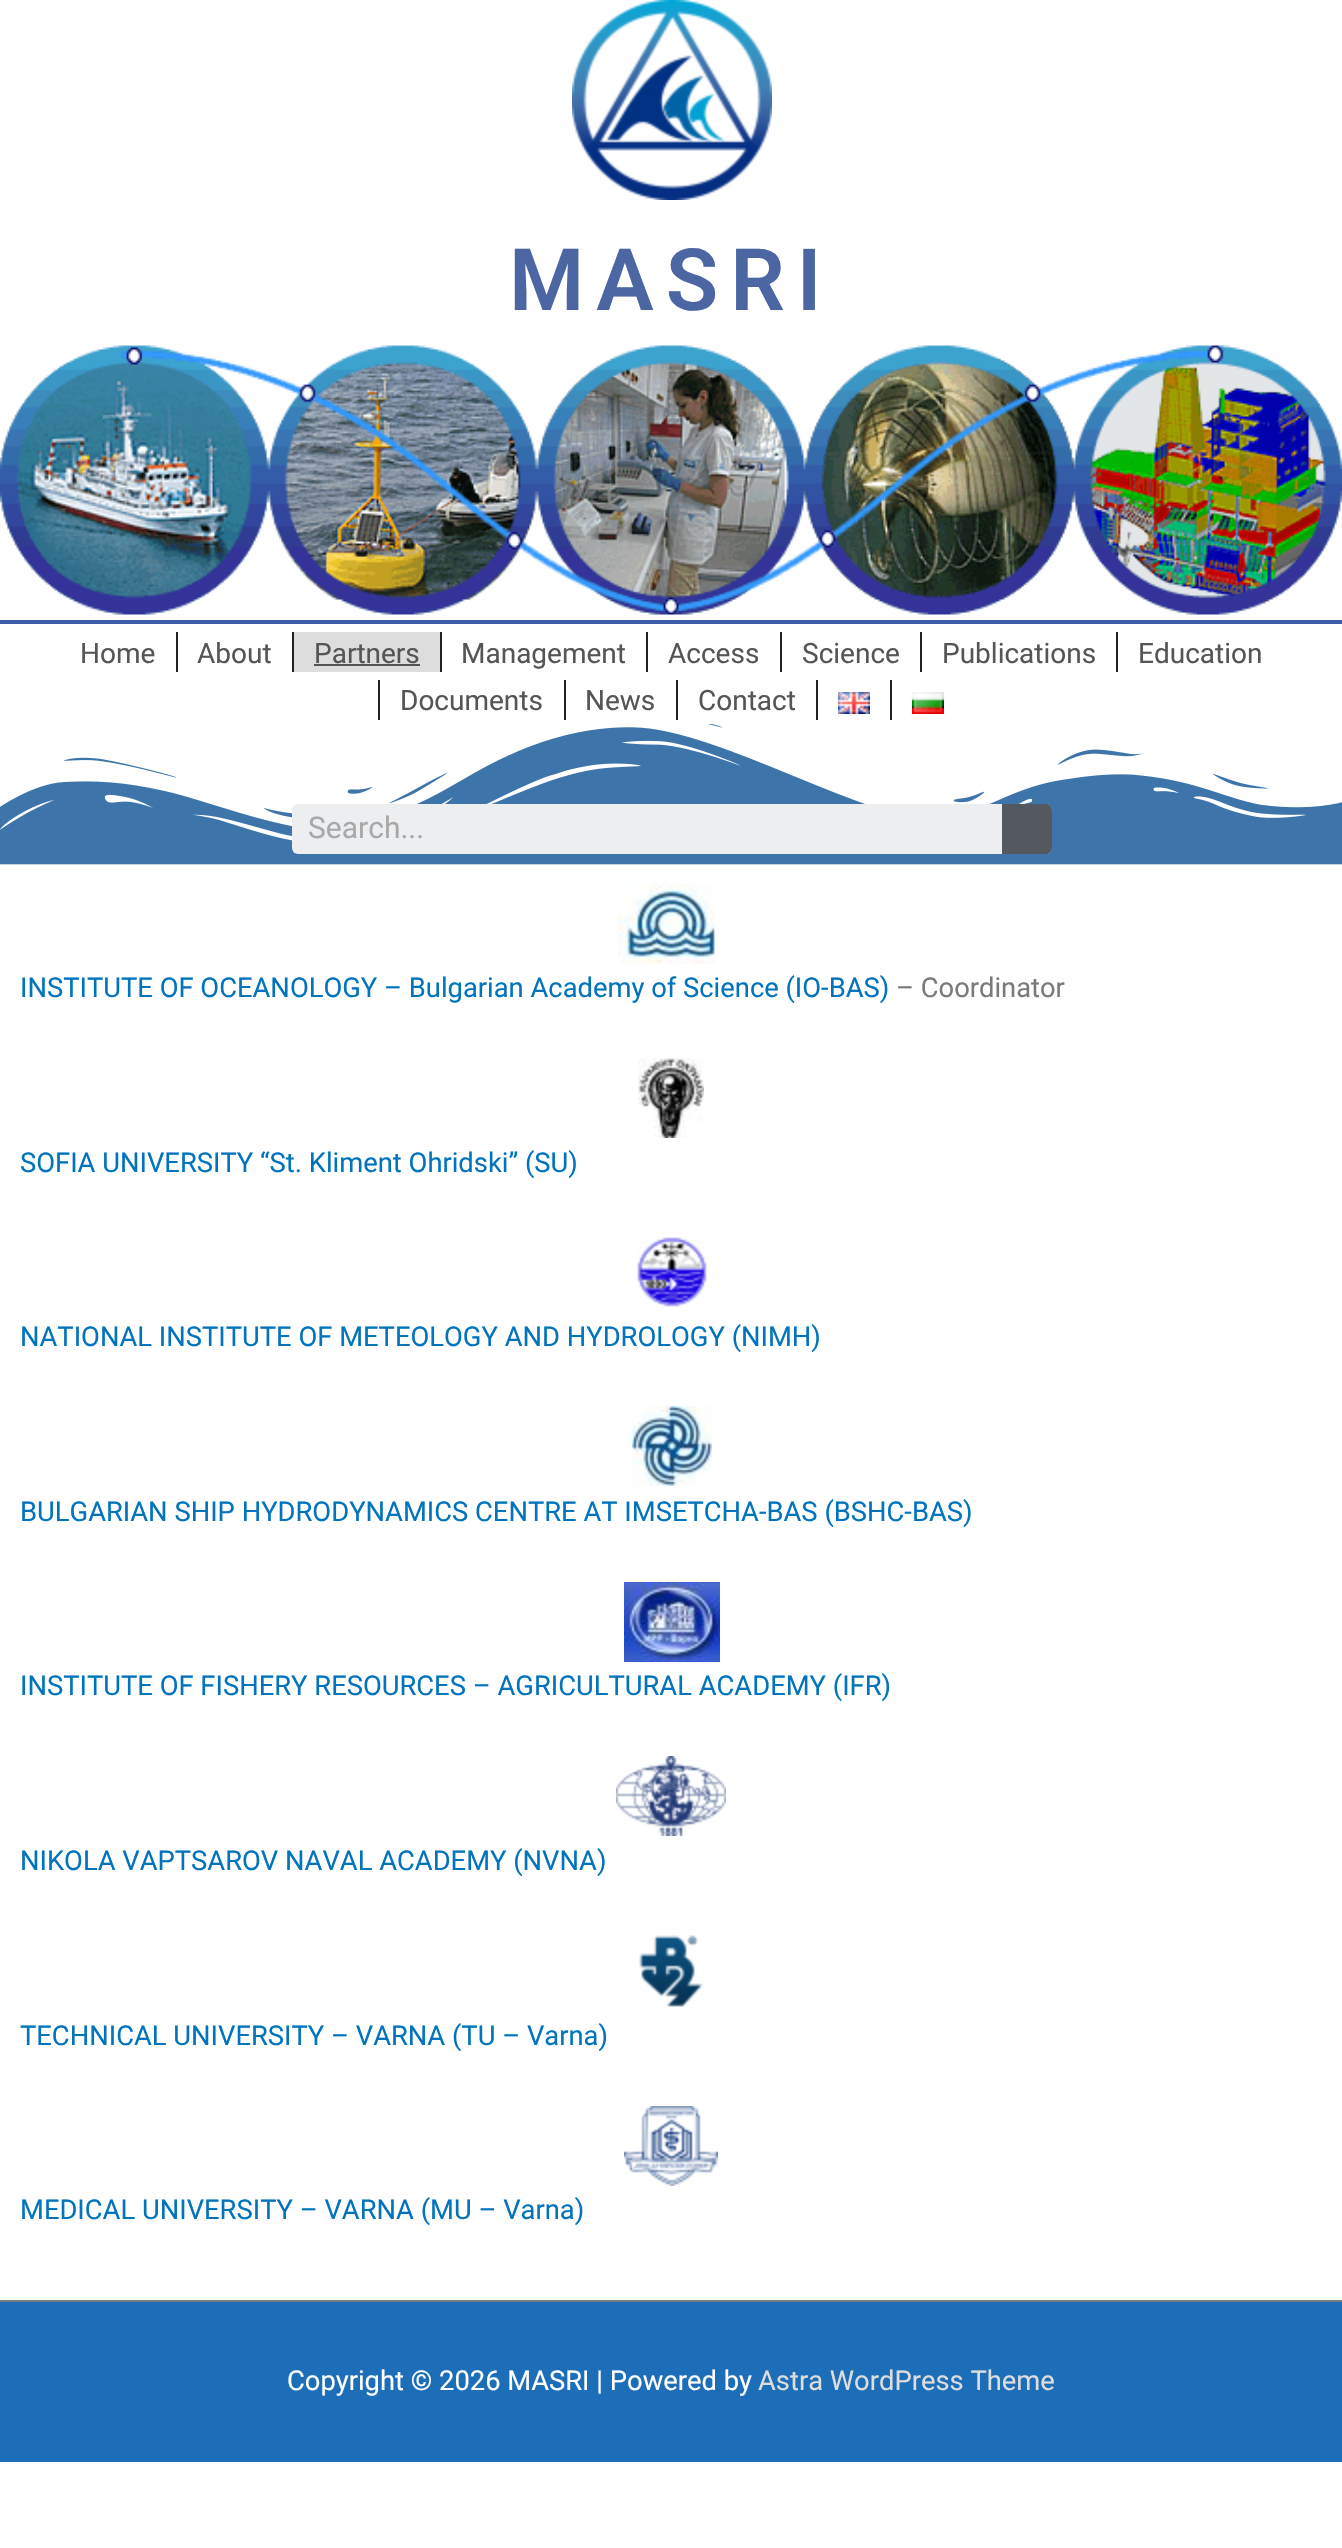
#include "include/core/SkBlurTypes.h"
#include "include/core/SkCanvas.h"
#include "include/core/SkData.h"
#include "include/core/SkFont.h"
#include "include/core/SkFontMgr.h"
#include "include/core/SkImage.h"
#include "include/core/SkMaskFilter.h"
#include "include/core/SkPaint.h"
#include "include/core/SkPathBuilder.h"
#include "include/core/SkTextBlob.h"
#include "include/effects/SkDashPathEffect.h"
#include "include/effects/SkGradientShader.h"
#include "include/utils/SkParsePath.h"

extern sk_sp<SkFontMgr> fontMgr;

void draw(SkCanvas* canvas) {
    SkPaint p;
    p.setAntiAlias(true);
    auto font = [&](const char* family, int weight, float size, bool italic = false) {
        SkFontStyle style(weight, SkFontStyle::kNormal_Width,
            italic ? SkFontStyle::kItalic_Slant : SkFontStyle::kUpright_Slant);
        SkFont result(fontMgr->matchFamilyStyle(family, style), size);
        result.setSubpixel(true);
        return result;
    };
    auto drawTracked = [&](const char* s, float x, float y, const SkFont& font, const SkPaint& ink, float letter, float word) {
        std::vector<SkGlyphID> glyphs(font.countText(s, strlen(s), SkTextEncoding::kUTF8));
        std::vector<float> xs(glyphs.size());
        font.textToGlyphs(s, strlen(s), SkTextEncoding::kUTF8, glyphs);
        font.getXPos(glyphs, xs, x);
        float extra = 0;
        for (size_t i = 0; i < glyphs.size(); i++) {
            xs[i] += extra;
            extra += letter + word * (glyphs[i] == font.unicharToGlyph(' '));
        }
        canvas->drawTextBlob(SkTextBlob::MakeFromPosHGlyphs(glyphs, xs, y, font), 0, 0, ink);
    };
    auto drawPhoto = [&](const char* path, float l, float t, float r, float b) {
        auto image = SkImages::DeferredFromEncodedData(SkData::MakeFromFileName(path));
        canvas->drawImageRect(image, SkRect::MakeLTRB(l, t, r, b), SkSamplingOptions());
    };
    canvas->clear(0xFFFFFFFF);
    drawPhoto("media/1.png", 572, 0, 772, 200);
    auto font1 = font("Roboto", 600, 86);
    p.setColor(0xFF4C66A3);
    drawTracked("MASRI", 509, 310, font1, p, 12, 0);
    drawPhoto("media/2.png", 0, 345, 1342, 615);
    p.setColor(0xFF3C5CA8);
    canvas->drawRect(SkRect::MakeLTRB(0, 620, 1342, 624), p);
    auto font2 = font("Roboto", 400, 28);
    p.setColor(0xFF555555);
    canvas->drawString("Home", 80, 663, font2, p);
    p.setColor(0xFF222222);
    canvas->drawRect(SkRect::MakeLTRB(176, 632, 178, 672), p);
    p.setColor(0xFF555555);
    canvas->drawString("About", 197, 663, font2, p);
    p.setColor(0xFF222222);
    canvas->drawRect(SkRect::MakeLTRB(292, 632, 294, 672), p);
    p.setColor(0xFFDDDDDD);
    canvas->drawRect(SkRect::MakeLTRB(294, 632, 440, 672), p);
    p.setColor(0xFF555555);
    canvas->drawString("Partners", 314, 663, font2, p);
    canvas->drawRect(SkRect::MakeLTRB(314, 664, 420, 666), p);
    p.setColor(0xFF222222);
    canvas->drawRect(SkRect::MakeLTRB(440, 632, 442, 672), p);
    p.setColor(0xFF555555);
    canvas->drawString("Management", 461, 663, font2, p);
    p.setColor(0xFF222222);
    canvas->drawRect(SkRect::MakeLTRB(646, 632, 648, 672), p);
    p.setColor(0xFF555555);
    canvas->drawString("Access", 668, 663, font2, p);
    p.setColor(0xFF222222);
    canvas->drawRect(SkRect::MakeLTRB(780, 632, 782, 672), p);
    p.setColor(0xFF555555);
    canvas->drawString("Science", 802, 663, font2, p);
    p.setColor(0xFF222222);
    canvas->drawRect(SkRect::MakeLTRB(920, 632, 922, 672), p);
    p.setColor(0xFF555555);
    canvas->drawString("Publications", 942, 663, font2, p);
    p.setColor(0xFF222222);
    canvas->drawRect(SkRect::MakeLTRB(1116, 632, 1118, 672), p);
    p.setColor(0xFF555555);
    canvas->drawString("Education", 1138, 663, font2, p);
    p.setColor(0xFF222222);
    canvas->drawRect(SkRect::MakeLTRB(378, 680, 380, 720), p);
    p.setColor(0xFF555555);
    canvas->drawString("Documents", 400, 710, font2, p);
    p.setColor(0xFF222222);
    canvas->drawRect(SkRect::MakeLTRB(564, 680, 566, 720), p);
    p.setColor(0xFF555555);
    canvas->drawString("News", 585, 710, font2, p);
    p.setColor(0xFF222222);
    canvas->drawRect(SkRect::MakeLTRB(676, 680, 678, 720), p);
    p.setColor(0xFF555555);
    canvas->drawString("Contact", 698, 710, font2, p);
    p.setColor(0xFF222222);
    canvas->drawRect(SkRect::MakeLTRB(816, 680, 818, 720), p);
    drawPhoto("media/3.png", 838, 692, 870, 714);
    canvas->drawRect(SkRect::MakeLTRB(890, 680, 892, 720), p);
    drawPhoto("media/4.png", 912, 692, 944, 714);
    drawPhoto("media/5.png", 0, 724, 1342, 865);
    p.setColor(0xFFECEEEF);
    canvas->drawRoundRect(SkRect::MakeLTRB(292, 804, 1052, 854), 6, 6, p);
    auto font3 = font("Roboto", 400, 30);
    p.setColor(0xFFA8A8A9);
    canvas->drawString("Search...", 308, 838, font3, p);
    p.setColor(0xFF54595F);
    canvas->drawPath(SkPathBuilder().moveTo(1002, 804).lineTo(1046, 804).cubicTo(1049.5f, 804, 1052, 806.5f, 1052, 810).lineTo(1052, 848).cubicTo(1052, 851.5f, 1049.5f, 854, 1046, 854).lineTo(1002, 854).close().detach(), p);
    drawPhoto("media/6.png", 618, 884, 717, 964);
    auto font4 = font("Roboto", 400, 27.35f);
    p.setColor(0xFF0274BE);
    canvas->drawString("INSTITUTE OF OCEANOLOGY – Bulgarian Academy of Science (IO-BAS)", 20, 997, font4, p);
    p.setColor(0xFF7A7A7A);
    canvas->drawString("– Coordinator", 896, 997, font4, p);
    drawPhoto("media/7.png", 638, 1058, 704, 1138);
    p.setColor(0xFF0274BE);
    canvas->drawString("SOFIA UNIVERSITY “St. Kliment Ohridski” (SU)", 20, 1172, font4, p);
    drawPhoto("media/8.png", 637, 1237, 707, 1307);
    canvas->drawString("NATIONAL INSTITUTE OF METEOLOGY AND HYDROLOGY (NIMH)", 20, 1346, font4, p);
    drawPhoto("media/9.png", 632, 1406, 712, 1486);
    canvas->drawString("BULGARIAN SHIP HYDRODYNAMICS CENTRE AT IMSETCHA-BAS (BSHC-BAS)", 20, 1521, font4, p);
    drawPhoto("media/10.png", 624, 1582, 720, 1662);
    canvas->drawString("INSTITUTE OF FISHERY RESOURCES – AGRICULTURAL ACADEMY (IFR)", 20, 1695, font4, p);
    drawPhoto("media/11.png", 616, 1756, 726, 1836);
    canvas->drawString("NIKOLA VAPTSAROV NAVAL ACADEMY (NVNA)", 20, 1870, font4, p);
    drawPhoto("media/12.png", 639, 1935, 703, 2007);
    canvas->drawString("TECHNICAL UNIVERSITY – VARNA (TU – Varna)", 20, 2045, font4, p);
    drawPhoto("media/13.png", 624, 2106, 718, 2186);
    canvas->drawString("MEDICAL UNIVERSITY – VARNA (MU – Varna)", 20, 2219, font4, p);
    p.setColor(0xFF7A7A7A);
    canvas->drawRect(SkRect::MakeLTRB(0, 2300, 1342, 2302), p);
    p.setColor(0xFF1B6EB7);
    canvas->drawRect(SkRect::MakeLTRB(0, 2302, 1342, 2462), p);
    p.setColor(0xFFFFFFFF);
    canvas->drawString("Copyright © 2026 MASRI | Powered by", 287, 2390, font4, p);
    p.setColor(0xFFDDDDDD);
    canvas->drawString("Astra WordPress Theme", 758, 2390, font4, p);
}
